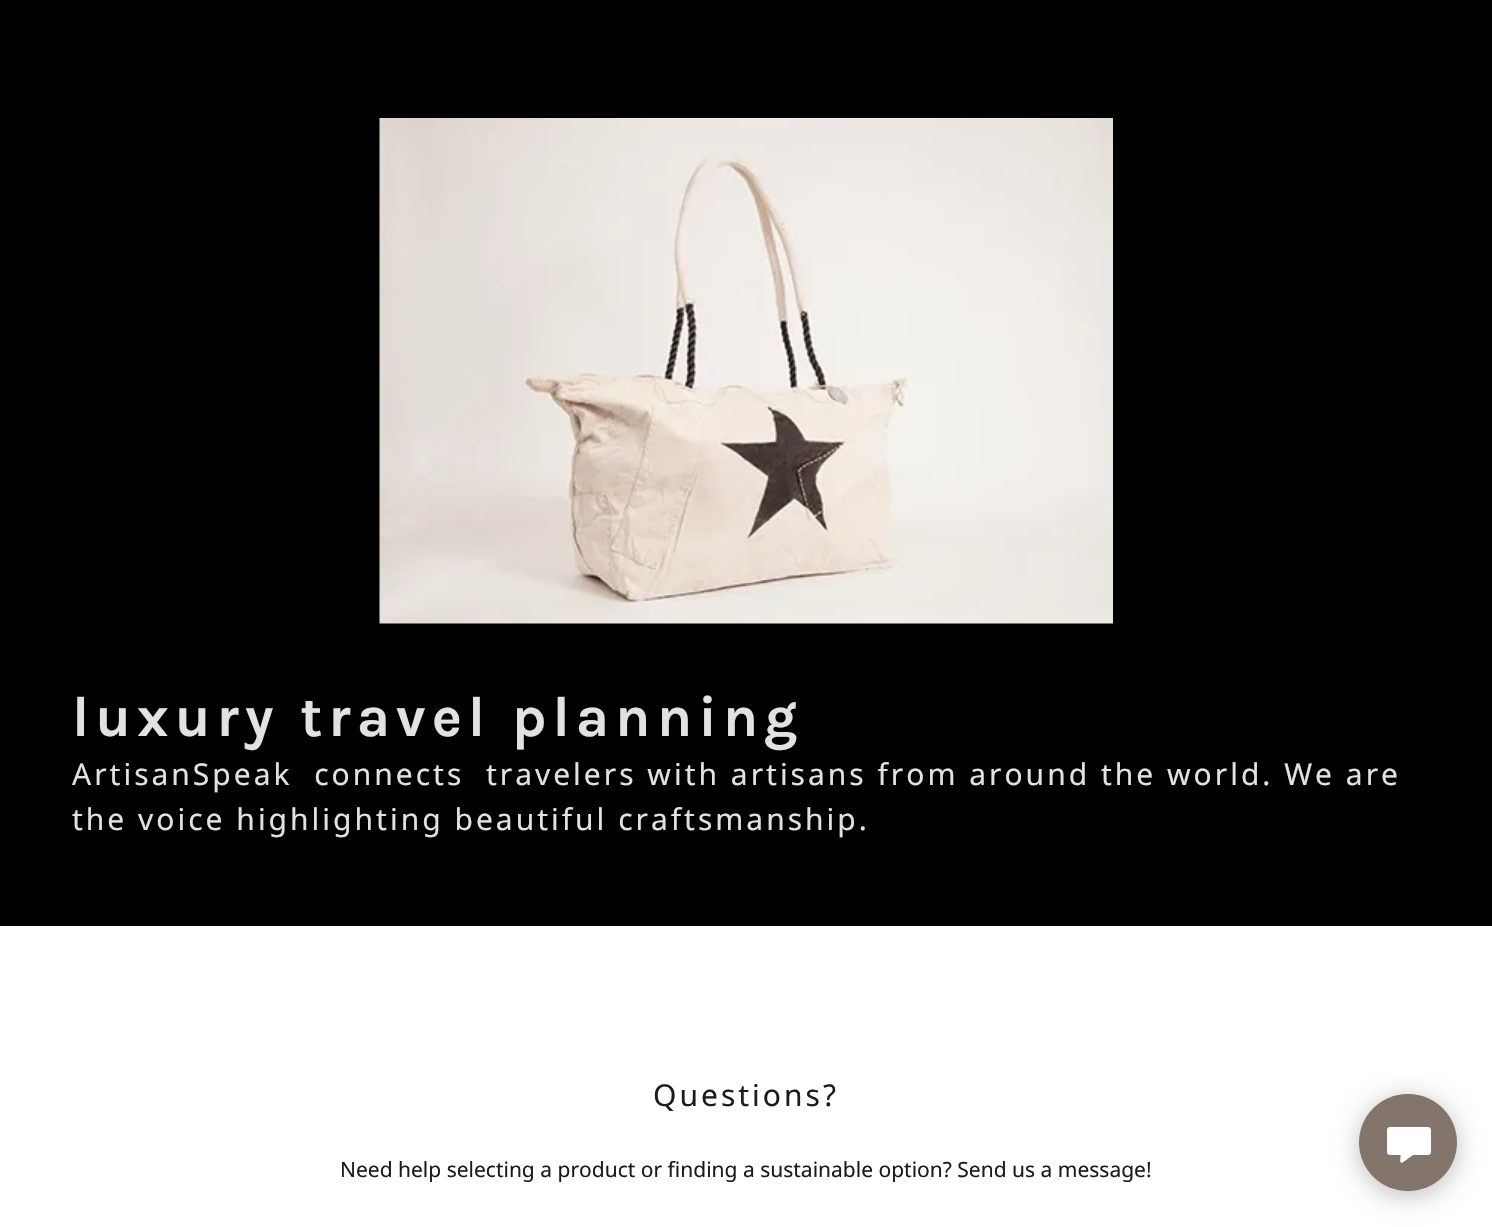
#include "include/core/SkBlurTypes.h"
#include "include/core/SkCanvas.h"
#include "include/core/SkData.h"
#include "include/core/SkFont.h"
#include "include/core/SkFontMgr.h"
#include "include/core/SkImage.h"
#include "include/core/SkMaskFilter.h"
#include "include/core/SkPaint.h"
#include "include/core/SkPathBuilder.h"
#include "include/core/SkTextBlob.h"
#include "include/effects/SkDashPathEffect.h"
#include "include/effects/SkGradientShader.h"
#include "include/utils/SkParsePath.h"

extern sk_sp<SkFontMgr> fontMgr;

void draw(SkCanvas* canvas) {
    SkPaint p;
    p.setAntiAlias(true);
    auto font = [&](const char* family, int weight, float size, bool italic = false) {
        SkFontStyle style(weight, SkFontStyle::kNormal_Width,
            italic ? SkFontStyle::kItalic_Slant : SkFontStyle::kUpright_Slant);
        SkFont result(fontMgr->matchFamilyStyle(family, style), size);
        result.setSubpixel(true);
        return result;
    };
    auto drawTracked = [&](const char* s, float x, float y, const SkFont& font, const SkPaint& ink, float letter, float word) {
        std::vector<SkGlyphID> glyphs(font.countText(s, strlen(s), SkTextEncoding::kUTF8));
        std::vector<float> xs(glyphs.size());
        font.textToGlyphs(s, strlen(s), SkTextEncoding::kUTF8, glyphs);
        font.getXPos(glyphs, xs, x);
        float extra = 0;
        for (size_t i = 0; i < glyphs.size(); i++) {
            xs[i] += extra;
            extra += letter + word * (glyphs[i] == font.unicharToGlyph(' '));
        }
        canvas->drawTextBlob(SkTextBlob::MakeFromPosHGlyphs(glyphs, xs, y, font), 0, 0, ink);
    };
    auto drawPhoto = [&](const char* path, float l, float t, float r, float b) {
        auto image = SkImages::DeferredFromEncodedData(SkData::MakeFromFileName(path));
        canvas->drawImageRect(image, SkRect::MakeLTRB(l, t, r, b), SkSamplingOptions());
    };
    canvas->clear(0xFFFFFFFF);
    p.setColor(0xFF000000);
    canvas->drawRect(SkRect::MakeLTRB(0, 0, 1492, 926), p);
    drawPhoto("media/1.png", 379, 118, 1113, 624);
    auto font1 = font("Karla", 700, 57);
    p.setColor(0xFFE2E2E2);
    drawTracked("luxury travel planning", 72, 736, font1, p, 6, 0);
    auto font2 = font("Noto Sans", 400, 30);
    drawTracked("ArtisanSpeak  connects  travelers with artisans from around the world. We are", 72, 785, font2, p, 3, 0);
    drawTracked("the voice highlighting beautiful craftsmanship.", 72, 830, font2, p, 3, 0);
    p.setColor(0xFF1B1B1B);
    drawTracked("Questions?", 653, 1106, font2, p, 3, 0);
    auto font3 = font("Noto Sans", 400, 21);
    canvas->drawString("Need help selecting a product or finding a sustainable option? Send us a message!", 340, 1177, font3, p);
    p.setColor(0x40000000);
    p.setMaskFilter(SkMaskFilter::MakeBlur(kNormal_SkBlurStyle, 13.5f));
    canvas->drawRoundRect(SkRect::MakeLTRB(1359, 1098, 1457, 1196), 49, 49, p);
    p.setMaskFilter(nullptr);
    p.setColor(0xFF83746C);
    canvas->drawRoundRect(SkRect::MakeLTRB(1359, 1094, 1457, 1191), 48.5f, 48.5f, p);
    drawPhoto("media/2.png", 1387, 1127, 1431, 1163);
}
